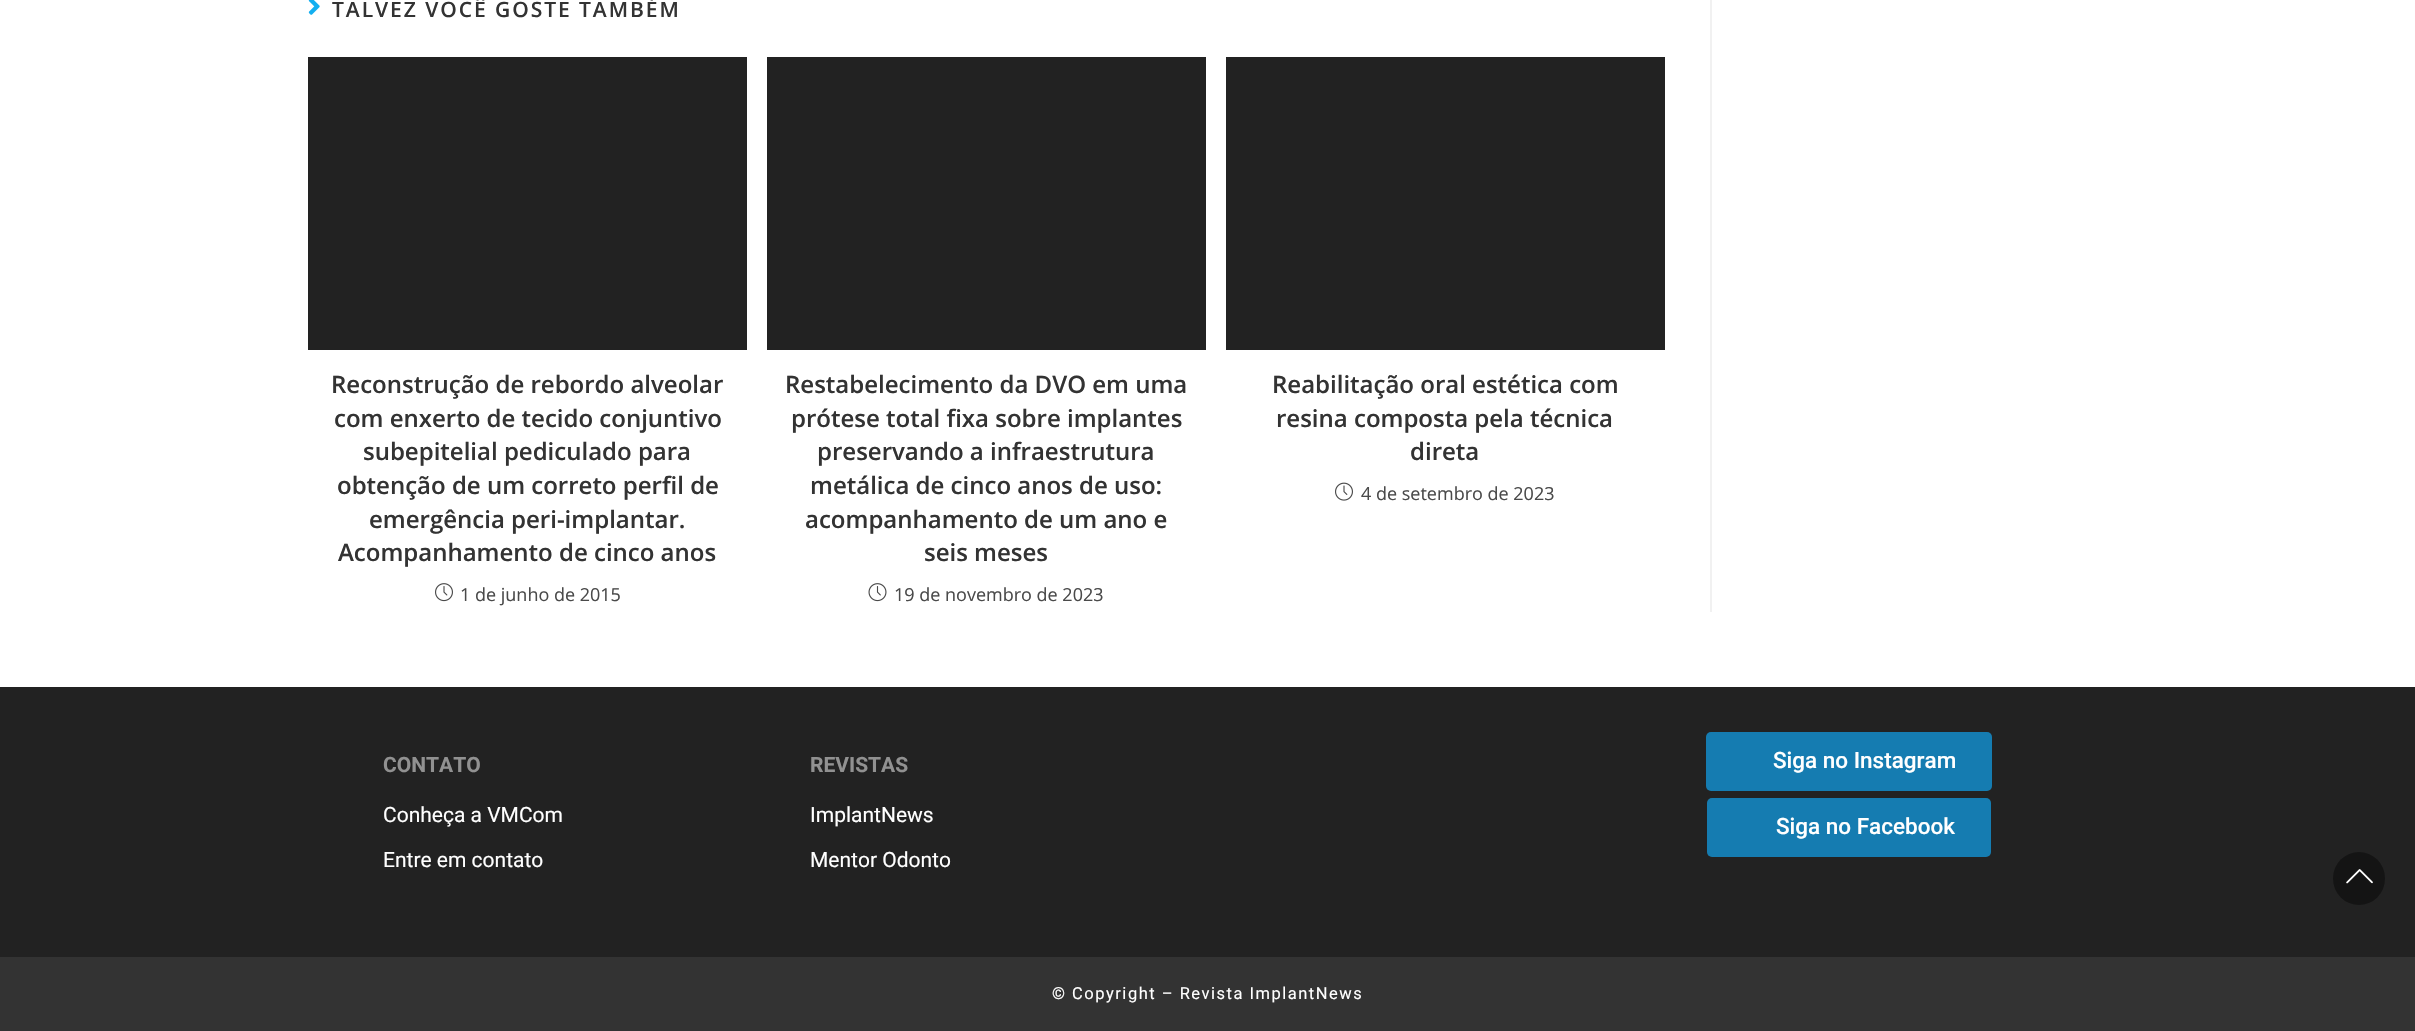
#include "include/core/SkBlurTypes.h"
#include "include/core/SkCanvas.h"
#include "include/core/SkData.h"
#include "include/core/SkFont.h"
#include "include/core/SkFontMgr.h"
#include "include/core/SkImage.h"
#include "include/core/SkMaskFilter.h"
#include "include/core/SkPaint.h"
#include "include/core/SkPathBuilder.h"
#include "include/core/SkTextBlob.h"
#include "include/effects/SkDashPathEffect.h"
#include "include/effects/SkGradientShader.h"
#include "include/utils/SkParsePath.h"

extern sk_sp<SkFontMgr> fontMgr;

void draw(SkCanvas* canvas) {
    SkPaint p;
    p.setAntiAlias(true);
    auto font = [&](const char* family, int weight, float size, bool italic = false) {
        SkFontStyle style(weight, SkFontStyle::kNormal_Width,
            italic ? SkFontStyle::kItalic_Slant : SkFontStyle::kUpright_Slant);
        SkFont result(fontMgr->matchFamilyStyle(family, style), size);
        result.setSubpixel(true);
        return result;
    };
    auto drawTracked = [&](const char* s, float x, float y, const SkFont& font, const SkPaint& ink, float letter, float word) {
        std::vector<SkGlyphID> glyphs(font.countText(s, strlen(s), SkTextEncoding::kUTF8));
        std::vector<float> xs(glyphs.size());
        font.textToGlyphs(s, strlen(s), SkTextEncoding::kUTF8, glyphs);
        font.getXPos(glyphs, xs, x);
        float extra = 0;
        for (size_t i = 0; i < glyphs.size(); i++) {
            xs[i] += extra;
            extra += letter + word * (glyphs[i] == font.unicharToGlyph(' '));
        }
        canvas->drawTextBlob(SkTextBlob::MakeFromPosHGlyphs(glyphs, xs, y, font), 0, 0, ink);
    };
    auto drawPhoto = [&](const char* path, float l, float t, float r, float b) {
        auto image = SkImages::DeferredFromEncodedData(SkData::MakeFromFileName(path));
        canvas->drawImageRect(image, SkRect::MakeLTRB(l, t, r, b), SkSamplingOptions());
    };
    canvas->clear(0xFFFFFFFF);
    p.setColor(0xFFF1F1F1);
    canvas->drawRect(SkRect::MakeLTRB(1710, 0, 1712, 612), p);
    drawPhoto("media/1.png", 308, 0, 320, 15);
    auto font1 = font("Open Sans", 600, 21);
    p.setColor(0xFF333333);
    drawTracked("TALVEZ VOCÊ GOSTE TAMBÉM", 332, 17, font1, p, 1.95f, 0);
    p.setColor(0xFF222222);
    canvas->drawRect(SkRect::MakeLTRB(308, 57, 747, 350), p);
    auto font2 = font("Open Sans", 600, 24);
    p.setColor(0xFF333333);
    {
        const struct { const char* s; float x, y; } items[] = {
            {"Reconstrução de rebordo alveolar", 331, 393},
            {"com enxerto de tecido conjuntivo", 334, 427},
            {"subepitelial pediculado para", 363, 460},
            {"obtenção de um correto perfil de", 337, 494},
            {"emergência peri-implantar.", 369, 528},
            {"Acompanhamento de cinco anos", 338, 561},
        };
        for (auto [s, x, y] : items) {
            canvas->drawString(s, x, y, font2, p);
        }
    }
    drawPhoto("media/2.png", 435, 583, 453, 602);
    auto font3 = font("Open Sans", 400, 18);
    p.setColor(0xFF4A4A4A);
    canvas->drawString("1 de junho de 2015", 460, 601, font3, p);
    p.setColor(0xFF222222);
    canvas->drawRect(SkRect::MakeLTRB(767, 57, 1206, 350), p);
    p.setColor(0xFF333333);
    {
        const struct { const char* s; float x, y; } items[] = {
            {"Restabelecimento da DVO em uma", 785, 393},
            {"prótese total fixa sobre implantes", 791, 427},
            {"preservando a infraestrutura", 817, 460},
            {"metálica de cinco anos de uso:", 810, 494},
            {"acompanhamento de um ano e", 805, 528},
            {"seis meses", 924, 561},
        };
        for (auto [s, x, y] : items) {
            canvas->drawString(s, x, y, font2, p);
        }
    }
    drawPhoto("media/3.png", 868, 583, 887, 602);
    p.setColor(0xFF4A4A4A);
    canvas->drawString("19 de novembro de 2023", 894, 601, font3, p);
    p.setColor(0xFF222222);
    canvas->drawRect(SkRect::MakeLTRB(1226, 57, 1665, 350), p);
    p.setColor(0xFF333333);
    {
        const struct { const char* s; float x, y; } items[] = {
            {"Reabilitação oral estética com", 1272, 393},
            {"resina composta pela técnica", 1276, 427},
            {"direta", 1410, 460},
        };
        for (auto [s, x, y] : items) {
            canvas->drawString(s, x, y, font2, p);
        }
    }
    drawPhoto("media/4.png", 1335, 482, 1353, 501);
    p.setColor(0xFF4A4A4A);
    canvas->drawString("4 de setembro de 2023", 1361, 500, font3, p);
    p.setColor(0xFF222222);
    canvas->drawRect(SkRect::MakeLTRB(0, 687, 2415, 957), p);
    auto font4 = font("Roboto", 700, 21);
    p.setColor(0xFF919191);
    canvas->drawString("CONTATO", 383, 772, font4, p);
    auto font5 = font("Roboto", 400, 21);
    p.setColor(0xFFFFFFFF);
    canvas->drawString("Conheça a VMCom", 383, 822, font5, p);
    canvas->drawString("Entre em contato", 383, 867, font5, p);
    p.setColor(0xFF919191);
    canvas->drawString("REVISTAS", 810, 772, font4, p);
    p.setColor(0xFFFFFFFF);
    canvas->drawString("ImplantNews", 810, 822, font5, p);
    canvas->drawString("Mentor Odonto", 810, 867, font5, p);
    p.setColor(0xFF157CB1);
    canvas->drawRoundRect(SkRect::MakeLTRB(1706, 732, 1992, 791), 5, 5, p);
    auto font6 = font("Roboto", 500, 22.5f);
    p.setColor(0xFFFFFFFF);
    canvas->drawString("Siga no Instagram", 1773, 768, font6, p);
    p.setColor(0xFF157CB1);
    canvas->drawRoundRect(SkRect::MakeLTRB(1707, 798, 1991, 857), 5, 5, p);
    p.setColor(0xFFFFFFFF);
    canvas->drawString("Siga no Facebook", 1776, 834, font6, p);
    p.setColor(0xFF333333);
    canvas->drawRect(SkRect::MakeLTRB(0, 957, 2415, 1031), p);
    auto font7 = font("Roboto", 400, 16.5f);
    p.setColor(0xFFFFFFFF);
    drawTracked("© Copyright – Revista ImplantNews", 1052, 999, font7, p, 1.5f, 0);
    p.setColor(0xFF141414);
    canvas->drawRoundRect(SkRect::MakeLTRB(2333, 852, 2385, 905), 26, 26, p);
    drawPhoto("media/5.png", 2346, 869, 2373, 884);
}
